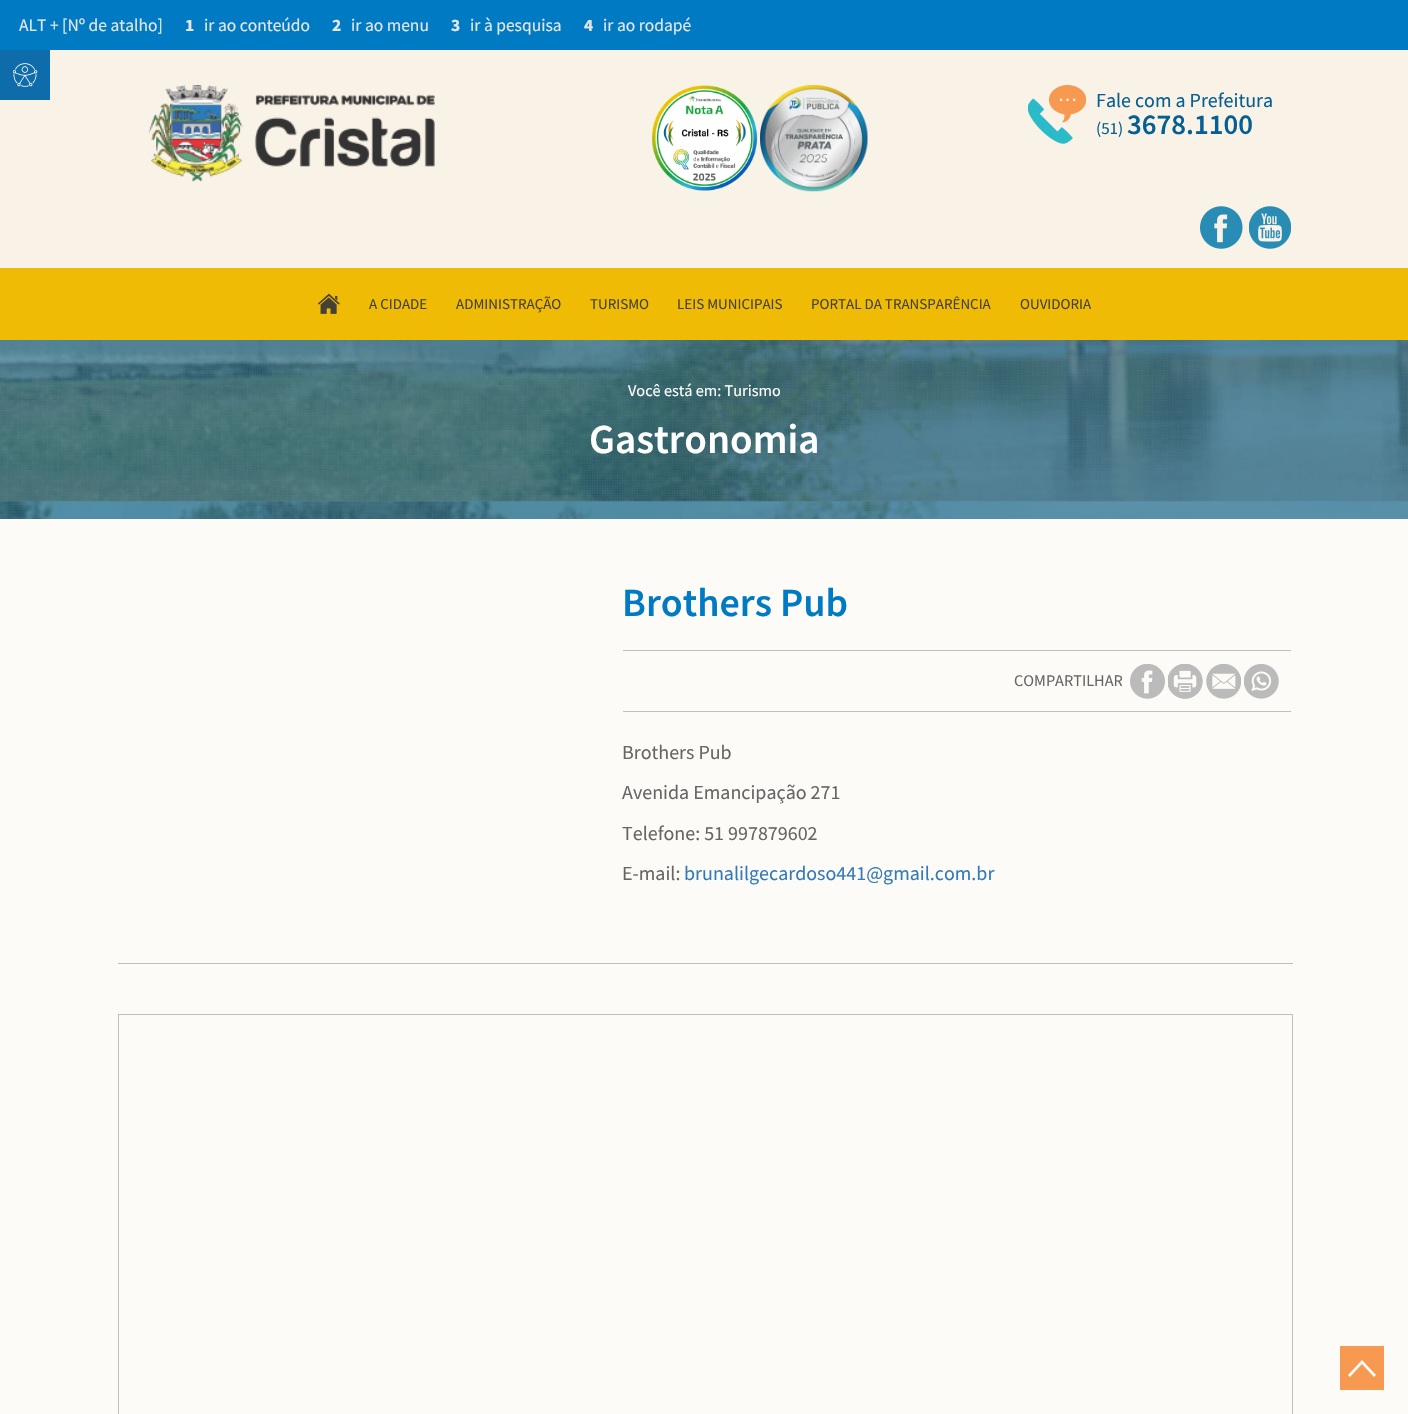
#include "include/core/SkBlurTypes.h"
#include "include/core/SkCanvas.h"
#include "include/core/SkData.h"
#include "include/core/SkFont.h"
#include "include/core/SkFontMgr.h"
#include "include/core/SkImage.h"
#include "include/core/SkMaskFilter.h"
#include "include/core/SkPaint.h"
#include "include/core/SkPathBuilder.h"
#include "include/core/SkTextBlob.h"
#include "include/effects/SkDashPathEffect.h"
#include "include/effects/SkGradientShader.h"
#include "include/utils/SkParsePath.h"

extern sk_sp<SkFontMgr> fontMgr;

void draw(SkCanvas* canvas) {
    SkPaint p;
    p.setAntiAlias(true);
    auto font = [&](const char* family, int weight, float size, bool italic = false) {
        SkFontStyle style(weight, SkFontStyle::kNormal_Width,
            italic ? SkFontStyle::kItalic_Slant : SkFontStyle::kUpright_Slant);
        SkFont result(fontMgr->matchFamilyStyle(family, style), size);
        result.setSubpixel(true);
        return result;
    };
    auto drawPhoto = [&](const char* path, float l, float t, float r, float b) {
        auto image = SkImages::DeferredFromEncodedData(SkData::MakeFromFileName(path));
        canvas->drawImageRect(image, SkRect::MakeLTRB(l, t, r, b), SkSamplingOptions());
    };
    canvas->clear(0xFFFDFBF7);
    p.setColor(0xFF007AC2);
    canvas->drawRect(SkRect::MakeLTRB(0, 0, 1408, 50), p);
    auto font1 = font("Source Sans Pro", 400, 17.5f);
    p.setColor(0xFFE6E6E6);
    canvas->drawString("ALT + [Nº de atalho]", 19, 31, font1, p);
    auto font2 = font("Source Sans Pro", 700, 17.5f);
    canvas->drawString("1", 185, 31, font2, p);
    canvas->drawString("ir ao conteúdo", 204, 31, font1, p);
    canvas->drawString("2", 332, 31, font2, p);
    canvas->drawString("ir ao menu", 351, 31, font1, p);
    canvas->drawString("3", 451, 31, font2, p);
    canvas->drawString("ir à pesquisa", 470, 31, font1, p);
    canvas->drawString("4", 584, 31, font2, p);
    canvas->drawString("ir ao rodapé", 603, 31, font1, p);
    p.setColor(0xFFF9F2E6);
    canvas->drawRect(SkRect::MakeLTRB(0, 50, 1408, 268), p);
    p.setColor(0xFF0F6CAA);
    canvas->drawRect(SkRect::MakeLTRB(0, 50, 50, 100), p);
    drawPhoto("media/1.png", 13, 63, 38, 87);
    drawPhoto("media/2.png", 148, 85, 435, 182);
    drawPhoto("media/3.png", 651, 85, 758, 191);
    drawPhoto("media/4.png", 760, 85, 868, 192);
    drawPhoto("media/5.png", 1028, 85, 1086, 144);
    auto font3 = font("Source Sans Pro", 400, 20);
    p.setColor(0xFF065F93);
    canvas->drawString("Fale com a Prefeitura", 1096, 107, font3, p);
    auto font4 = font("Source Sans Pro", 400, 17);
    canvas->drawString("(51)", 1096, 134, font4, p);
    auto font5 = font("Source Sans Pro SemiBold", 600, 28.75f);
    canvas->drawString("3678.1100", 1127, 134, font5, p);
    drawPhoto("media/6.png", 1200, 206, 1243, 249);
    drawPhoto("media/7.png", 1249, 206, 1291, 249);
    p.setColor(0xFFF0BB04);
    canvas->drawRect(SkRect::MakeLTRB(0, 268, 1408, 340), p);
    drawPhoto("media/8.png", 318, 293, 340, 314);
    auto font6 = font("Source Sans Pro", 400, 15);
    p.setColor(0xFF444137);
    {
        const struct { const char* s; float x, y; } items[] = {
            {"A CIDADE", 369, 309},
            {"ADMINISTRAÇÃO", 456, 309},
            {"TURISMO", 590, 309},
            {"LEIS MUNICIPAIS", 677, 309},
            {"PORTAL DA TRANSPARÊNCIA", 811, 309},
            {"OUVIDORIA", 1020, 309},
        };
        for (auto [s, x, y] : items) {
            canvas->drawString(s, x, y, font6, p);
        }
    }
    drawPhoto("media/9.png", 0, 340, 1408, 519);
    auto font7 = font("Source Sans Pro", 400, 16.25f);
    p.setColor(0xFFFFFFFF);
    canvas->drawString("Você está em: Turismo", 628, 396, font7, p);
    auto font8 = font("Source Sans Pro SemiBold", 600, 41.25f);
    canvas->drawString("Gastronomia", 589, 453, font8, p);
    auto font9 = font("Source Sans Pro SemiBold", 600, 40);
    p.setColor(0xFF007AC2);
    canvas->drawString("Brothers Pub", 622, 616, font9, p);
    p.setColor(0xFFBFBFBF);
    canvas->drawRect(SkRect::MakeLTRB(623, 650, 1291, 651), p);
    canvas->drawRect(SkRect::MakeLTRB(623, 711, 1291, 712), p);
    p.setColor(0xFF666666);
    canvas->drawString("COMPARTILHAR", 1014, 686, font7, p);
    drawPhoto("media/10.png", 1130, 664, 1165, 699);
    drawPhoto("media/11.png", 1168, 664, 1203, 699);
    drawPhoto("media/12.png", 1206, 664, 1241, 699);
    drawPhoto("media/13.png", 1244, 664, 1279, 699);
    {
        const struct { const char* s; float x, y; } items[] = {
            {"Brothers Pub", 622, 759},
            {"Avenida Emancipação 271", 622, 799},
            {"Telefone: 51 997879602", 622, 840},
            {"E-mail:", 622, 880},
        };
        for (auto [s, x, y] : items) {
            canvas->drawString(s, x, y, font3, p);
        }
    }
    p.setColor(0xFF337AB7);
    canvas->drawString("brunalilgecardoso441@gmail.com.br", 684, 880, font3, p);
    p.setColor(0xFFBFBFBF);
    canvas->drawRect(SkRect::MakeLTRB(118, 963, 1293, 964), p);
    p.setStyle(SkPaint::kStroke_Style);
    p.setStrokeWidth(1);
    canvas->drawRect(SkRect::MakeLTRB(118.5f, 1014.5f, 1292.5f, 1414.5f), p);
    p.setStyle(SkPaint::kFill_Style);
    p.setColor(0xFFF79951);
    canvas->drawPath(SkPathBuilder().moveTo(1340, 1346).lineTo(1340, 1390).lineTo(1384, 1390).lineTo(1384, 1346).close().moveTo(1348, 1375).lineTo(1362, 1360).lineTo(1376, 1375).lineTo(1374, 1377).lineTo(1362, 1364).lineTo(1350, 1377).close().detach(), p);
}
